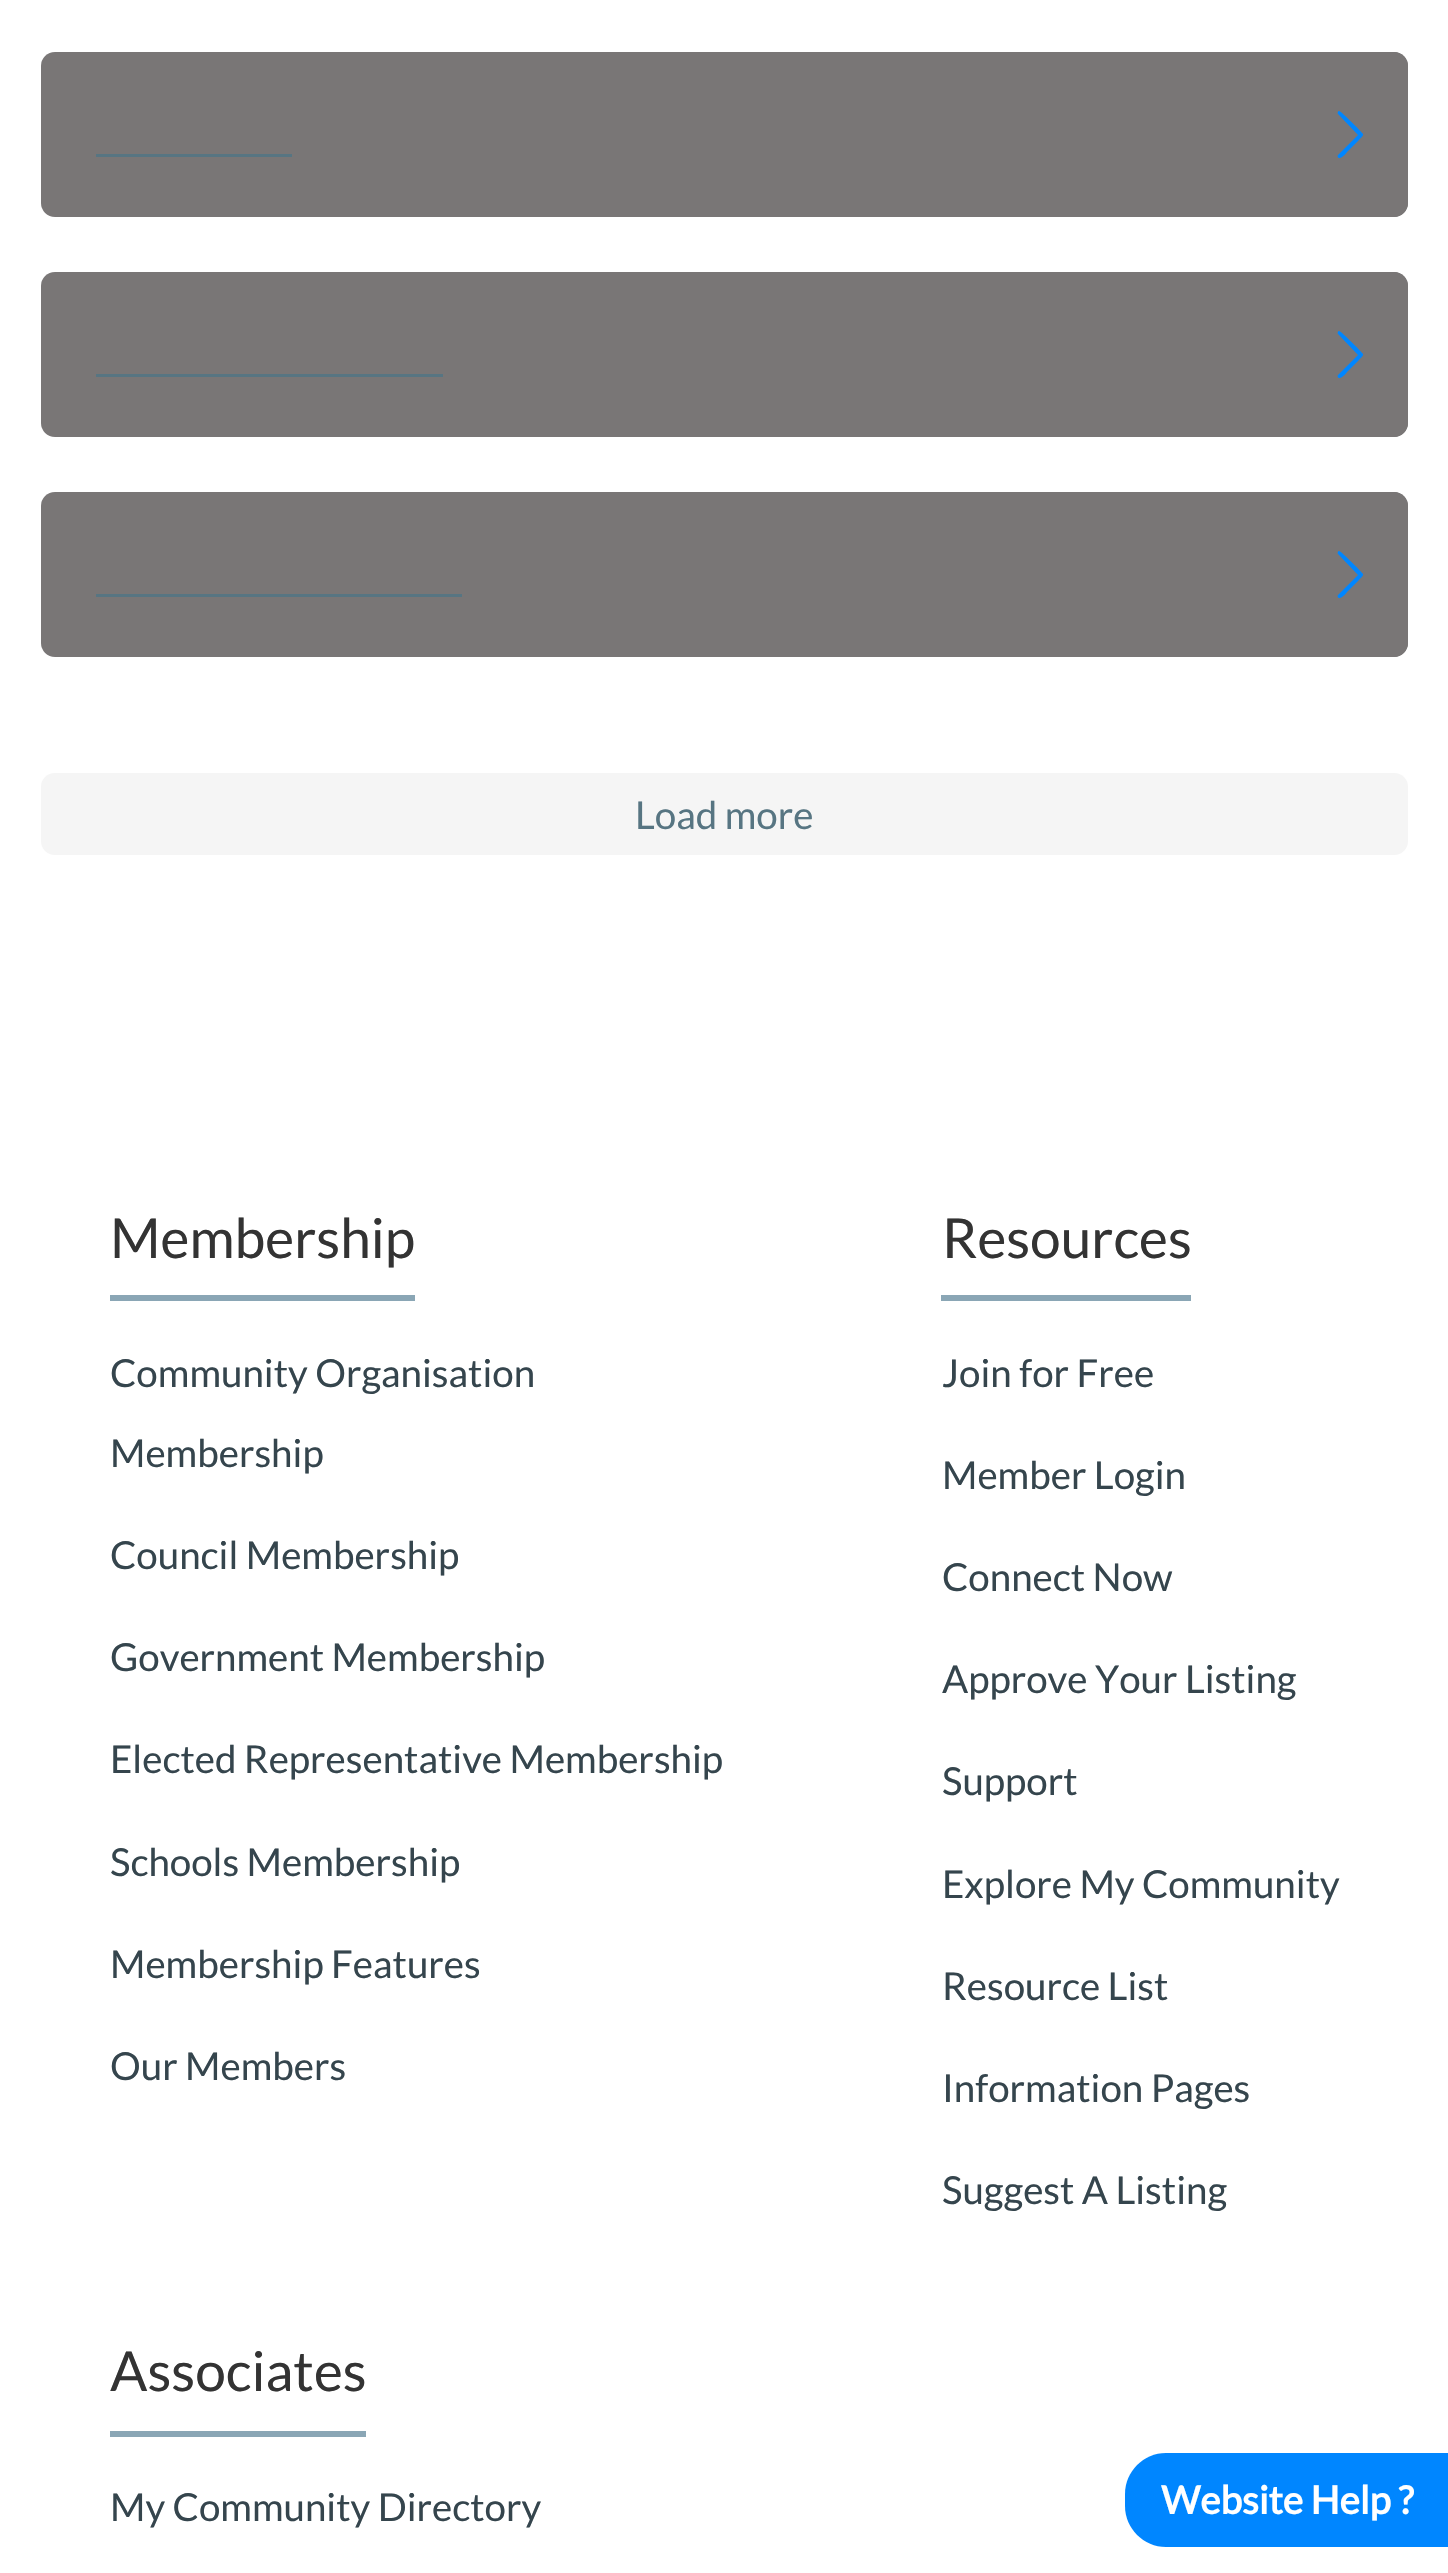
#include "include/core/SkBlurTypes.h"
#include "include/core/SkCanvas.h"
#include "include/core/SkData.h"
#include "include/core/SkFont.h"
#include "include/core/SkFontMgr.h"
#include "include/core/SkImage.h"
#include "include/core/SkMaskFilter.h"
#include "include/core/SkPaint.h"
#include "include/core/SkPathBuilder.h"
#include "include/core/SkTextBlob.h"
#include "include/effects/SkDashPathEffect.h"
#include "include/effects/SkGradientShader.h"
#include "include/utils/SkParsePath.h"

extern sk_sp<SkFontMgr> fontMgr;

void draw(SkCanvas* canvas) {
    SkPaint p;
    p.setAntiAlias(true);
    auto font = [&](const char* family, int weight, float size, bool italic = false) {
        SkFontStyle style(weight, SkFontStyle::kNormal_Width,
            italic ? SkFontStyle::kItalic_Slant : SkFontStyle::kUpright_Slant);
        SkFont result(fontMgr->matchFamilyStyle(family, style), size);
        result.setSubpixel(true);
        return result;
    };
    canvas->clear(0xFFFFFFFF);
    p.setColor(0xFF797676);
    canvas->drawRoundRect(SkRect::MakeLTRB(41, 52, 1408, 217), 14, 14, p);
    p.setColor(0xFF577582);
    canvas->drawRect(SkRect::MakeLTRB(96, 154, 292, 157), p);
    p.setColor(0xFF797676);
    canvas->drawPath(SkPathBuilder().moveTo(1293, 52).lineTo(1394, 52).cubicTo(1401.5f, 52, 1408, 58.5f, 1408, 66).lineTo(1408, 203).cubicTo(1408, 210.5f, 1401.5f, 217, 1394, 217).lineTo(1293, 217).close().detach(), p);
    p.setColor(0xFF0086FF);
    canvas->drawPath(SkPathBuilder().moveTo(1338, 155).cubicTo(1337, 156, 1338, 158, 1339, 158).cubicTo(1342, 159, 1347, 152, 1348, 151).lineTo(1359, 140).cubicTo(1359, 139, 1364, 136, 1363, 134).cubicTo(1361, 131, 1341, 111, 1339, 111).cubicTo(1338, 111, 1337, 113, 1338, 114).lineTo(1358, 135).close().detach(), p);
    p.setColor(0xFF797676);
    canvas->drawRoundRect(SkRect::MakeLTRB(41, 272, 1408, 437), 14, 14, p);
    p.setColor(0xFF577582);
    canvas->drawRect(SkRect::MakeLTRB(96, 374, 443, 377), p);
    p.setColor(0xFF797676);
    canvas->drawPath(SkPathBuilder().moveTo(1293, 272).lineTo(1394, 272).cubicTo(1401.5f, 272, 1408, 278.5f, 1408, 286).lineTo(1408, 423).cubicTo(1408, 430.5f, 1401.5f, 437, 1394, 437).lineTo(1293, 437).close().detach(), p);
    p.setColor(0xFF0086FF);
    canvas->drawPath(SkPathBuilder().moveTo(1338, 375).cubicTo(1337, 376, 1338, 378, 1339, 378).cubicTo(1342, 379, 1347, 372, 1348, 371).lineTo(1359, 360).cubicTo(1359, 359, 1364, 356, 1363, 354).cubicTo(1361, 351, 1341, 331, 1339, 331).cubicTo(1338, 331, 1337, 333, 1338, 334).lineTo(1358, 355).close().detach(), p);
    p.setColor(0xFF797676);
    canvas->drawRoundRect(SkRect::MakeLTRB(41, 492, 1408, 657), 14, 14, p);
    p.setColor(0xFF577582);
    canvas->drawRect(SkRect::MakeLTRB(96, 594, 462, 597), p);
    p.setColor(0xFF797676);
    canvas->drawPath(SkPathBuilder().moveTo(1293, 492).lineTo(1394, 492).cubicTo(1401.5f, 492, 1408, 498.5f, 1408, 506).lineTo(1408, 643).cubicTo(1408, 650.5f, 1401.5f, 657, 1394, 657).lineTo(1293, 657).close().detach(), p);
    p.setColor(0xFF0086FF);
    canvas->drawPath(SkPathBuilder().moveTo(1338, 595).cubicTo(1337, 596, 1338, 598, 1339, 598).cubicTo(1342, 599, 1347, 592, 1348, 591).lineTo(1359, 580).cubicTo(1359, 579, 1364, 576, 1363, 574).cubicTo(1361, 571, 1341, 551, 1339, 551).cubicTo(1338, 551, 1337, 553, 1338, 554).lineTo(1358, 575).close().detach(), p);
    p.setColor(0xFFF5F5F5);
    canvas->drawRoundRect(SkRect::MakeLTRB(41, 773, 1408, 855), 14, 14, p);
    auto font1 = font("Lato", 400, 38.5f);
    p.setColor(0xFF577582);
    canvas->drawString("Load more", 635, 829, font1, p);
    p.setColor(0xFF8AA6B5);
    canvas->drawRect(SkRect::MakeLTRB(110, 1295, 415, 1301), p);
    auto font2 = font("Lato", 400, 55);
    p.setColor(0xFF333333);
    canvas->drawString("Membership", 110, 1258, font2, p);
    p.setColor(0xFF35454D);
    {
        const struct { const char* s; float x, y; } items[] = {
            {"Community Organisation", 110, 1387},
            {"Membership", 110, 1467},
            {"Council Membership", 110, 1569},
            {"Government Membership", 110, 1671},
            {"Elected Representative Membership", 110, 1773},
            {"Schools Membership", 110, 1876},
            {"Membership Features", 110, 1978},
            {"Our Members", 110, 2080},
        };
        for (auto [s, x, y] : items) {
            canvas->drawString(s, x, y, font1, p);
        }
    }
    p.setColor(0xFF8AA6B5);
    canvas->drawRect(SkRect::MakeLTRB(941, 1295, 1191, 1301), p);
    p.setColor(0xFF333333);
    canvas->drawString("Resources", 942, 1258, font2, p);
    p.setColor(0xFF35454D);
    {
        const struct { const char* s; float x, y; } items[] = {
            {"Join for Free", 942, 1387},
            {"Member Login", 942, 1489},
            {"Connect Now", 942, 1591},
            {"Approve Your Listing", 942, 1693},
            {"Support", 942, 1795},
            {"Explore My Community", 942, 1898},
            {"Resource List", 942, 2000},
            {"Information Pages", 942, 2102},
            {"Suggest A Listing", 942, 2204},
        };
        for (auto [s, x, y] : items) {
            canvas->drawString(s, x, y, font1, p);
        }
    }
    p.setColor(0xFF8AA6B5);
    canvas->drawRect(SkRect::MakeLTRB(110, 2431, 366, 2437), p);
    p.setColor(0xFF333333);
    canvas->drawString("Associates", 110, 2391, font2, p);
    p.setColor(0xFF35454D);
    canvas->drawString("My Community Directory", 110, 2521, font1, p);
    p.setColor(0xFF0086FF);
    canvas->drawPath(SkPathBuilder().moveTo(1166, 2453).lineTo(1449, 2453).lineTo(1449, 2547).lineTo(1166, 2547).cubicTo(1143.5f, 2547, 1125, 2528.5f, 1125, 2506).lineTo(1125, 2494).cubicTo(1125, 2471.5f, 1143.5f, 2453, 1166, 2453).close().detach(), p);
    auto font3 = font("Lato", 700, 38.5f);
    p.setColor(0xFFFFFFFF);
    canvas->drawString("Website Help ?", 1161, 2514, font3, p);
}
